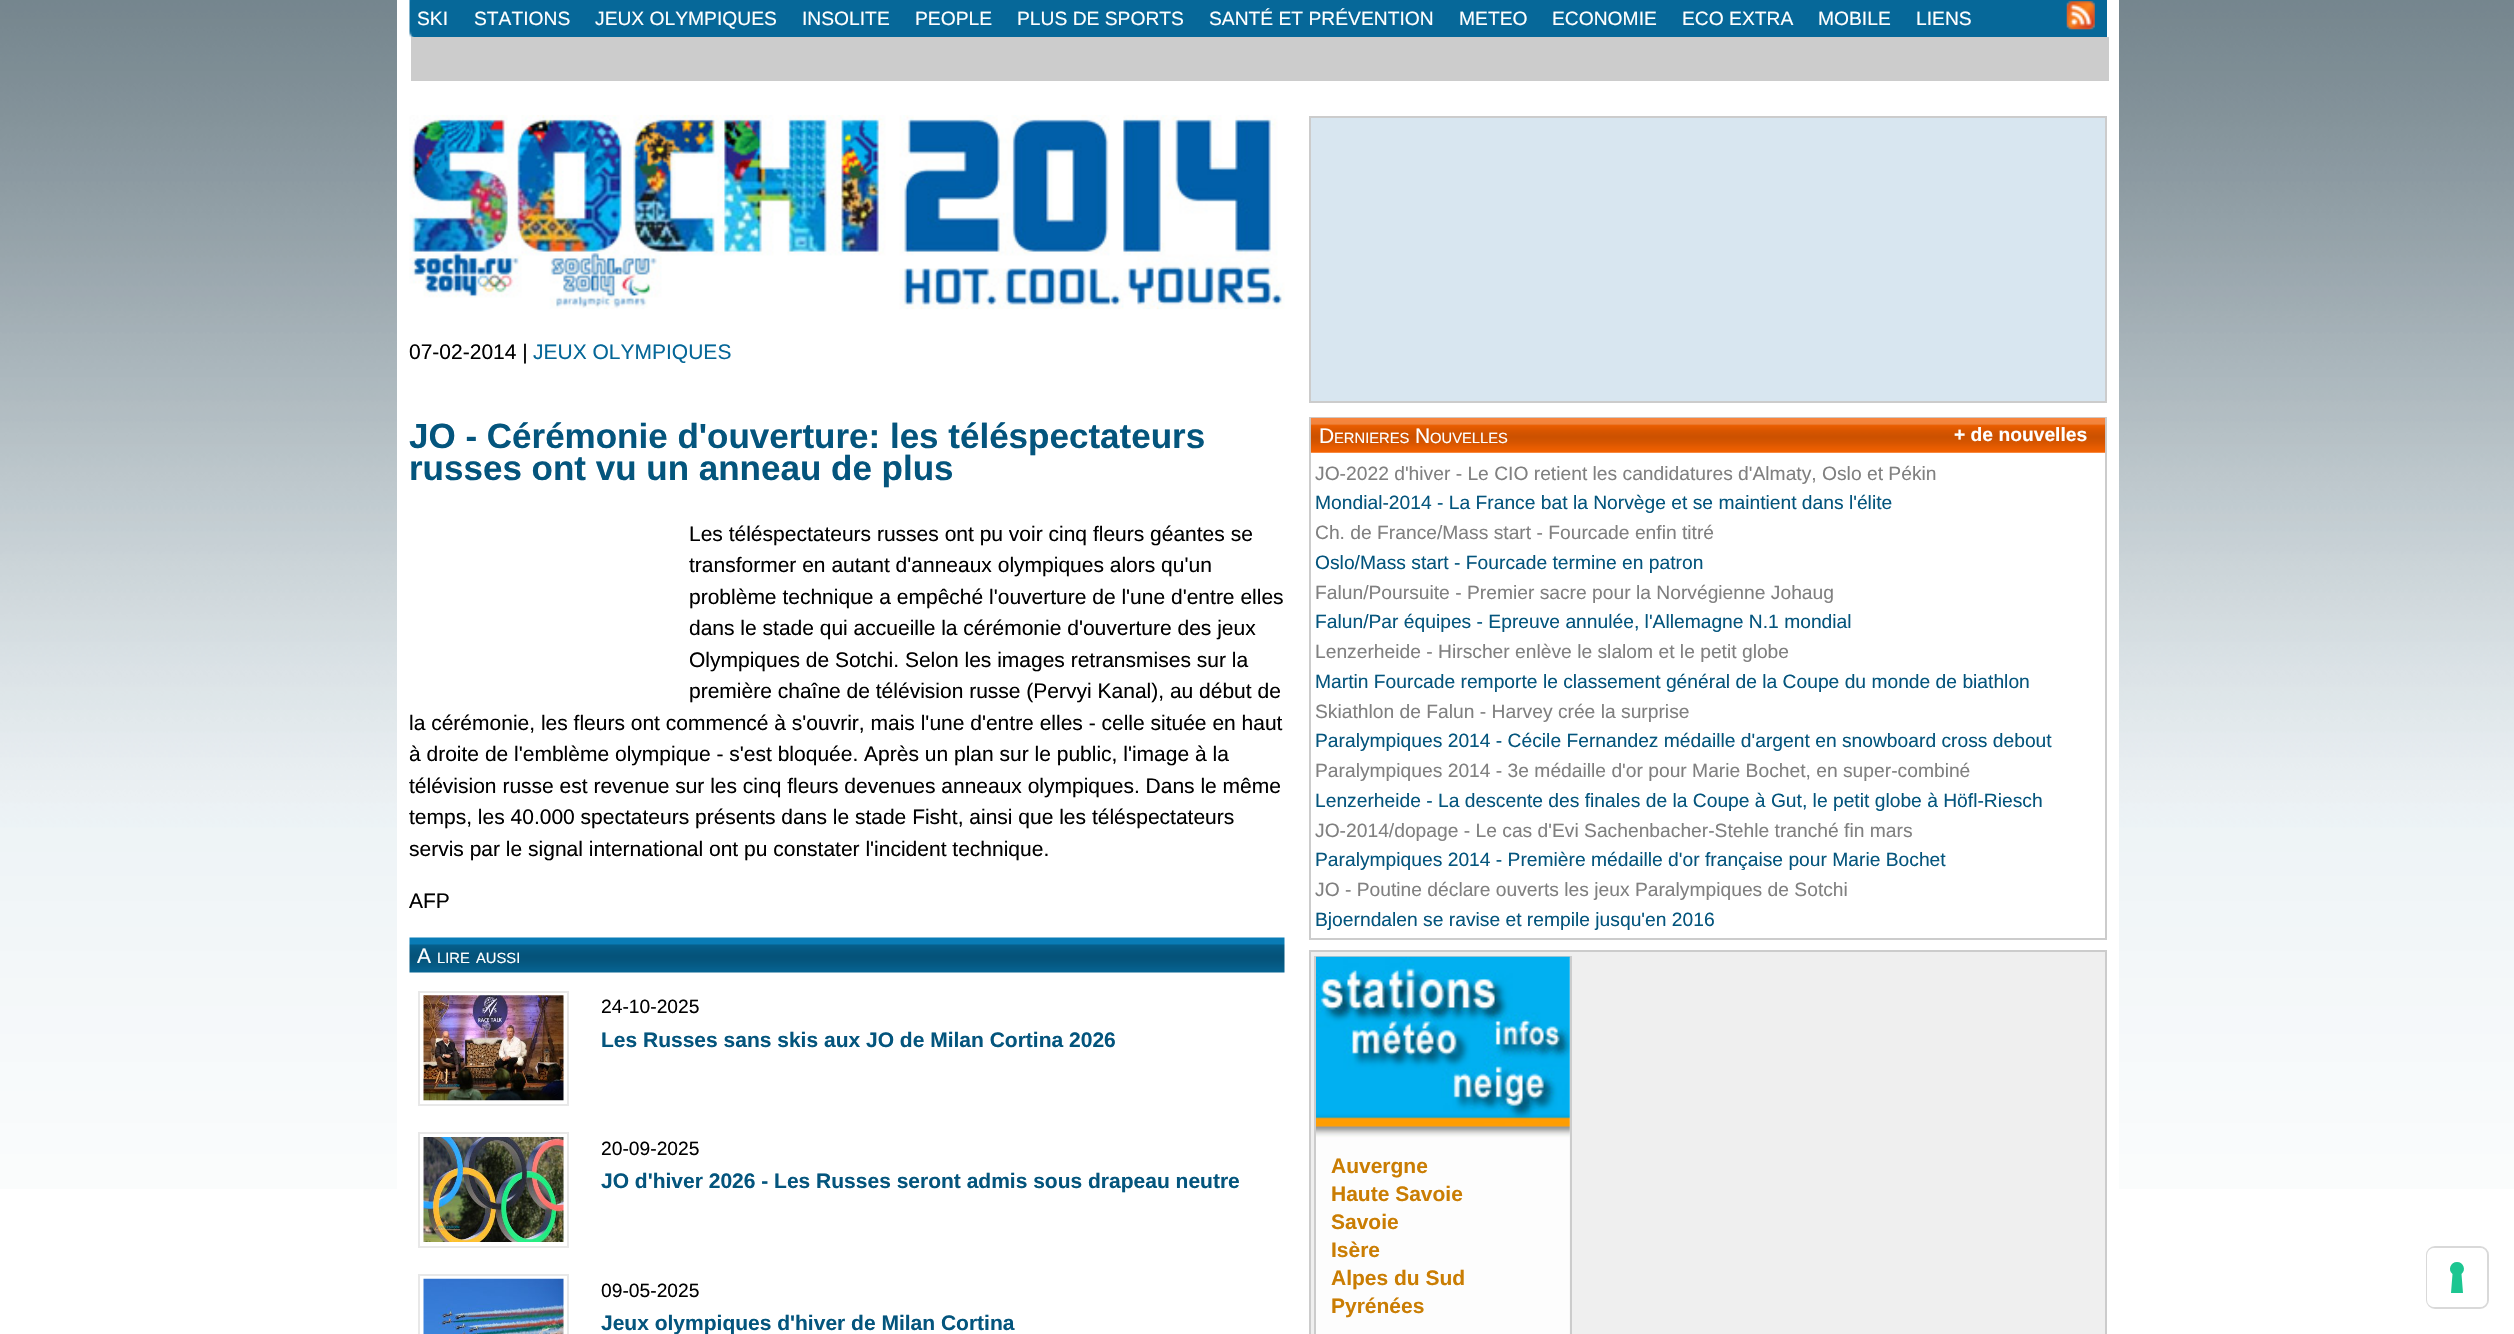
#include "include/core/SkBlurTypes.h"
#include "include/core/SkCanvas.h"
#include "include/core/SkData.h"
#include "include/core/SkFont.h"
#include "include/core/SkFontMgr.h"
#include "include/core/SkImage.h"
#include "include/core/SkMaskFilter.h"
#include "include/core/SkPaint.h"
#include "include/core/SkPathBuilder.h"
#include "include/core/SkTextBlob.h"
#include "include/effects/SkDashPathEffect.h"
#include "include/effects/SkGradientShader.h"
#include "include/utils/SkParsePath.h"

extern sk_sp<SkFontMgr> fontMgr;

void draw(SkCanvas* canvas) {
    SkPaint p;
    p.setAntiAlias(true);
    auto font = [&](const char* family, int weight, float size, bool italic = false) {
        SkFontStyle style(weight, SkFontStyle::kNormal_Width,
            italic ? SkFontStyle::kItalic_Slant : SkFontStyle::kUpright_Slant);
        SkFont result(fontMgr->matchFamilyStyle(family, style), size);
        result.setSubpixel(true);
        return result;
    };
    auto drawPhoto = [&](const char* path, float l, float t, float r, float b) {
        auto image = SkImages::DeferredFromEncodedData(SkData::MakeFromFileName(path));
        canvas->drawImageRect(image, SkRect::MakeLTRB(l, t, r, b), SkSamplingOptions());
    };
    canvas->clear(0xFFFFFFFF);
    drawPhoto("media/1.png", 0, 0, 2514, 1189);
    p.setColor(0xFFFFFFFF);
    canvas->drawRect(SkRect::MakeLTRB(397, 0, 2119, 1189), p);
    drawPhoto("media/2.png", 409, 0, 2107, 40);
    auto font1 = font("Liberation Sans", 400, 19.25f);
    {
        const struct { const char* s; float x, y; } items[] = {
            {"SKI", 417, 25},
            {"STATIONS", 474, 25},
            {"JEUX OLYMPIQUES", 595, 25},
            {"INSOLITE", 802, 25},
            {"PEOPLE", 915, 25},
            {"PLUS DE SPORTS", 1017, 25},
            {"SANTÉ ET PRÉVENTION", 1209, 25},
            {"METEO", 1459, 25},
            {"ECONOMIE", 1552, 25},
            {"ECO EXTRA", 1682, 25},
            {"MOBILE", 1818, 25},
            {"LIENS", 1916, 25},
        };
        for (auto [s, x, y] : items) {
            canvas->drawString(s, x, y, font1, p);
        }
    }
    drawPhoto("media/3.png", 2066, 1, 2095, 30);
    p.setColor(0xFFCCCCCC);
    canvas->drawRect(SkRect::MakeLTRB(411, 37, 2109, 81), p);
    drawPhoto("media/4.png", 409, 115, 1285, 310);
    auto font2 = font("Liberation Sans", 400, 21);
    p.setColor(0xFF000000);
    canvas->drawString("07-02-2014 |", 409, 359, font2, p);
    p.setColor(0xFF056798);
    canvas->drawString("JEUX OLYMPIQUES", 533, 359, font2, p);
    auto font3 = font("Liberation Sans", 700, 35);
    p.setColor(0xFF04557D);
    canvas->drawString("JO - Cérémonie d'ouverture: les téléspectateurs", 409, 448, font3, p);
    canvas->drawString("russes ont vu un anneau de plus", 409, 480, font3, p);
    p.setColor(0xFF000000);
    {
        const struct { const char* s; float x, y; } items[] = {
            {"Les téléspectateurs russes ont pu voir cinq fleurs géantes se", 689, 541},
            {"transformer en autant d'anneaux olympiques alors qu'un", 689, 572},
            {"problème technique a empêché l'ouverture de l'une d'entre elles", 689, 604},
            {"dans le stade qui accueille la cérémonie d'ouverture des jeux", 689, 635},
            {"Olympiques de Sotchi. Selon les images retransmises sur la", 689, 667},
            {"première chaîne de télévision russe (Pervyi Kanal), au début de", 689, 698},
            {"la cérémonie, les fleurs ont commencé à s'ouvrir, mais l'une d'entre elles - celle située en haut", 409, 730},
            {"à droite de l'emblème olympique - s'est bloquée. Après un plan sur le public, l'image à la", 409, 761},
            {"télévision russe est revenue sur les cinq fleurs devenues anneaux olympiques. Dans le même", 409, 793},
            {"temps, les 40.000 spectateurs présents dans le stade Fisht, ainsi que les téléspectateurs", 409, 824},
            {"servis par le signal international ont pu constater l'incident technique.", 409, 856},
            {"AFP", 409, 908},
        };
        for (auto [s, x, y] : items) {
            canvas->drawString(s, x, y, font2, p);
        }
    }
    drawPhoto("media/5.png", 409, 937, 1285, 973);
    p.setColor(0xFFFFFFFF);
    canvas->drawString("A", 417, 963, font2, p);
    auto font4 = font("Liberation Sans", 400, 14.75f);
    canvas->drawString("LIRE", 437, 963, font4, p);
    canvas->drawString("AUSSI", 476, 963, font4, p);
    p.setStyle(SkPaint::kStroke_Style);
    p.setStrokeWidth(2);
    p.setColor(0xFFE8E8E8);
    canvas->drawRect(SkRect::MakeLTRB(419, 992, 568, 1105), p);
    drawPhoto("media/6.png", 423, 995, 564, 1101);
    p.setStyle(SkPaint::kFill_Style);
    p.setColor(0xFF000000);
    canvas->drawString("24-10-2025", 601, 1013, font1, p);
    auto font5 = font("Liberation Sans", 700, 21);
    p.setColor(0xFF04557D);
    canvas->drawString("Les Russes sans skis aux JO de Milan Cortina 2026", 601, 1047, font5, p);
    p.setStyle(SkPaint::kStroke_Style);
    p.setColor(0xFFE8E8E8);
    canvas->drawRect(SkRect::MakeLTRB(419, 1133, 568, 1247), p);
    drawPhoto("media/7.png", 423, 1137, 564, 1242);
    p.setStyle(SkPaint::kFill_Style);
    p.setColor(0xFF000000);
    canvas->drawString("20-09-2025", 601, 1155, font1, p);
    p.setColor(0xFF04557D);
    canvas->drawString("JO d'hiver 2026 - Les Russes seront admis sous drapeau neutre", 601, 1188, font5, p);
    p.setStyle(SkPaint::kStroke_Style);
    p.setColor(0xFFE8E8E8);
    canvas->drawRect(SkRect::MakeLTRB(419, 1275, 568, 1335), p);
    drawPhoto("media/8.png", 423, 1278, 564, 1334);
    p.setStyle(SkPaint::kFill_Style);
    p.setColor(0xFF000000);
    canvas->drawString("09-05-2025", 601, 1297, font1, p);
    p.setColor(0xFF04557D);
    canvas->drawString("Jeux olympiques d'hiver de Milan Cortina", 601, 1330, font5, p);
    p.setColor(0xFFD8E6F0);
    canvas->drawRect(SkRect::MakeLTRB(1310, 117, 2106, 402), p);
    p.setStyle(SkPaint::kStroke_Style);
    p.setColor(0xFFCCCCCC);
    canvas->drawRect(SkRect::MakeLTRB(1310, 117, 2106, 402), p);
    canvas->drawRect(SkRect::MakeLTRB(1310, 418, 2106, 939), p);
    drawPhoto("media/9.png", 1310, 417, 2106, 453);
    p.setStyle(SkPaint::kFill_Style);
    p.setColor(0xFFFFFFFF);
    canvas->drawString("D", 1319, 443, font2, p);
    canvas->drawString("ERNIERES", 1334, 443, font4, p);
    canvas->drawString("N", 1415, 443, font2, p);
    canvas->drawString("OUVELLES", 1430, 443, font4, p);
    auto font6 = font("Liberation Sans", 700, 19.25f);
    canvas->drawString("+ de nouvelles", 1954, 441, font6, p);
    p.setColor(0xFF808080);
    canvas->drawString("JO-2022 d'hiver - Le CIO retient les candidatures d'Almaty, Oslo et Pékin", 1315, 480, font1, p);
    p.setColor(0xFF04557D);
    canvas->drawString("Mondial-2014 - La France bat la Norvège et se maintient dans l'élite", 1315, 509, font1, p);
    p.setColor(0xFF808080);
    canvas->drawString("Ch. de France/Mass start - Fourcade enfin titré", 1315, 539, font1, p);
    p.setColor(0xFF04557D);
    canvas->drawString("Oslo/Mass start - Fourcade termine en patron", 1315, 569, font1, p);
    p.setColor(0xFF808080);
    canvas->drawString("Falun/Poursuite - Premier sacre pour la Norvégienne Johaug", 1315, 599, font1, p);
    p.setColor(0xFF04557D);
    canvas->drawString("Falun/Par équipes - Epreuve annulée, l'Allemagne N.1 mondial", 1315, 628, font1, p);
    p.setColor(0xFF808080);
    canvas->drawString("Lenzerheide - Hirscher enlève le slalom et le petit globe", 1315, 658, font1, p);
    p.setColor(0xFF04557D);
    canvas->drawString("Martin Fourcade remporte le classement général de la Coupe du monde de biathlon", 1315, 688, font1, p);
    p.setColor(0xFF808080);
    canvas->drawString("Skiathlon de Falun - Harvey crée la surprise", 1315, 718, font1, p);
    p.setColor(0xFF04557D);
    canvas->drawString("Paralympiques 2014 - Cécile Fernandez médaille d'argent en snowboard cross debout", 1315, 747, font1, p);
    p.setColor(0xFF808080);
    canvas->drawString("Paralympiques 2014 - 3e médaille d'or pour Marie Bochet, en super-combiné", 1315, 777, font1, p);
    p.setColor(0xFF04557D);
    canvas->drawString("Lenzerheide - La descente des finales de la Coupe à Gut, le petit globe à Höfl-Riesch", 1315, 807, font1, p);
    p.setColor(0xFF808080);
    canvas->drawString("JO-2014/dopage - Le cas d'Evi Sachenbacher-Stehle tranché fin mars", 1315, 837, font1, p);
    p.setColor(0xFF04557D);
    canvas->drawString("Paralympiques 2014 - Première médaille d'or française pour Marie Bochet", 1315, 866, font1, p);
    p.setColor(0xFF808080);
    canvas->drawString("JO - Poutine déclare ouverts les jeux Paralympiques de Sotchi", 1315, 896, font1, p);
    p.setColor(0xFF04557D);
    canvas->drawString("Bjoerndalen se ravise et rempile jusqu'en 2016", 1315, 926, font1, p);
    p.setColor(0xFFEFEFEF);
    canvas->drawRect(SkRect::MakeLTRB(1310, 951, 2106, 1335), p);
    p.setStyle(SkPaint::kStroke_Style);
    p.setColor(0xFFCCCCCC);
    canvas->drawRect(SkRect::MakeLTRB(1310, 951, 2106, 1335), p);
    canvas->drawRect(SkRect::MakeLTRB(1315, 957, 1571, 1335), p);
    drawPhoto("media/10.png", 1316, 956, 1570, 1334);
    p.setStyle(SkPaint::kFill_Style);
    p.setColor(0xFFCA7D03);
    {
        const struct { const char* s; float x, y; } items[] = {
            {"Auvergne", 1331, 1173},
            {"Haute Savoie", 1331, 1201},
            {"Savoie", 1331, 1229},
            {"Isère", 1331, 1257},
            {"Alpes du Sud", 1331, 1285},
            {"Pyrénées", 1331, 1313},
        };
        for (auto [s, x, y] : items) {
            canvas->drawString(s, x, y, font5, p);
        }
    }
    p.setStyle(SkPaint::kStroke_Style);
    p.setColor(0xFFD9D9D9);
    canvas->drawRoundRect(SkRect::MakeLTRB(2427, 1247, 2488, 1308), 8, 8, p);
    p.setStyle(SkPaint::kFill_Style);
    p.setColor(0xFFFFFFFF);
    canvas->drawRoundRect(SkRect::MakeLTRB(2427, 1248, 2487, 1307), 7, 7, p);
    p.setColor(0xFF1CC691);
    canvas->drawPath(SkPathBuilder(SkPathFillType::kEvenOdd).moveTo(2457, 1262).cubicTo(2463.5f, 1262, 2466.5f, 1270, 2461.5f, 1274).lineTo(2463, 1293).lineTo(2451, 1293).lineTo(2452.5f, 1274).cubicTo(2447.5f, 1270, 2450.5f, 1262, 2457, 1262).close().detach(), p);
}
